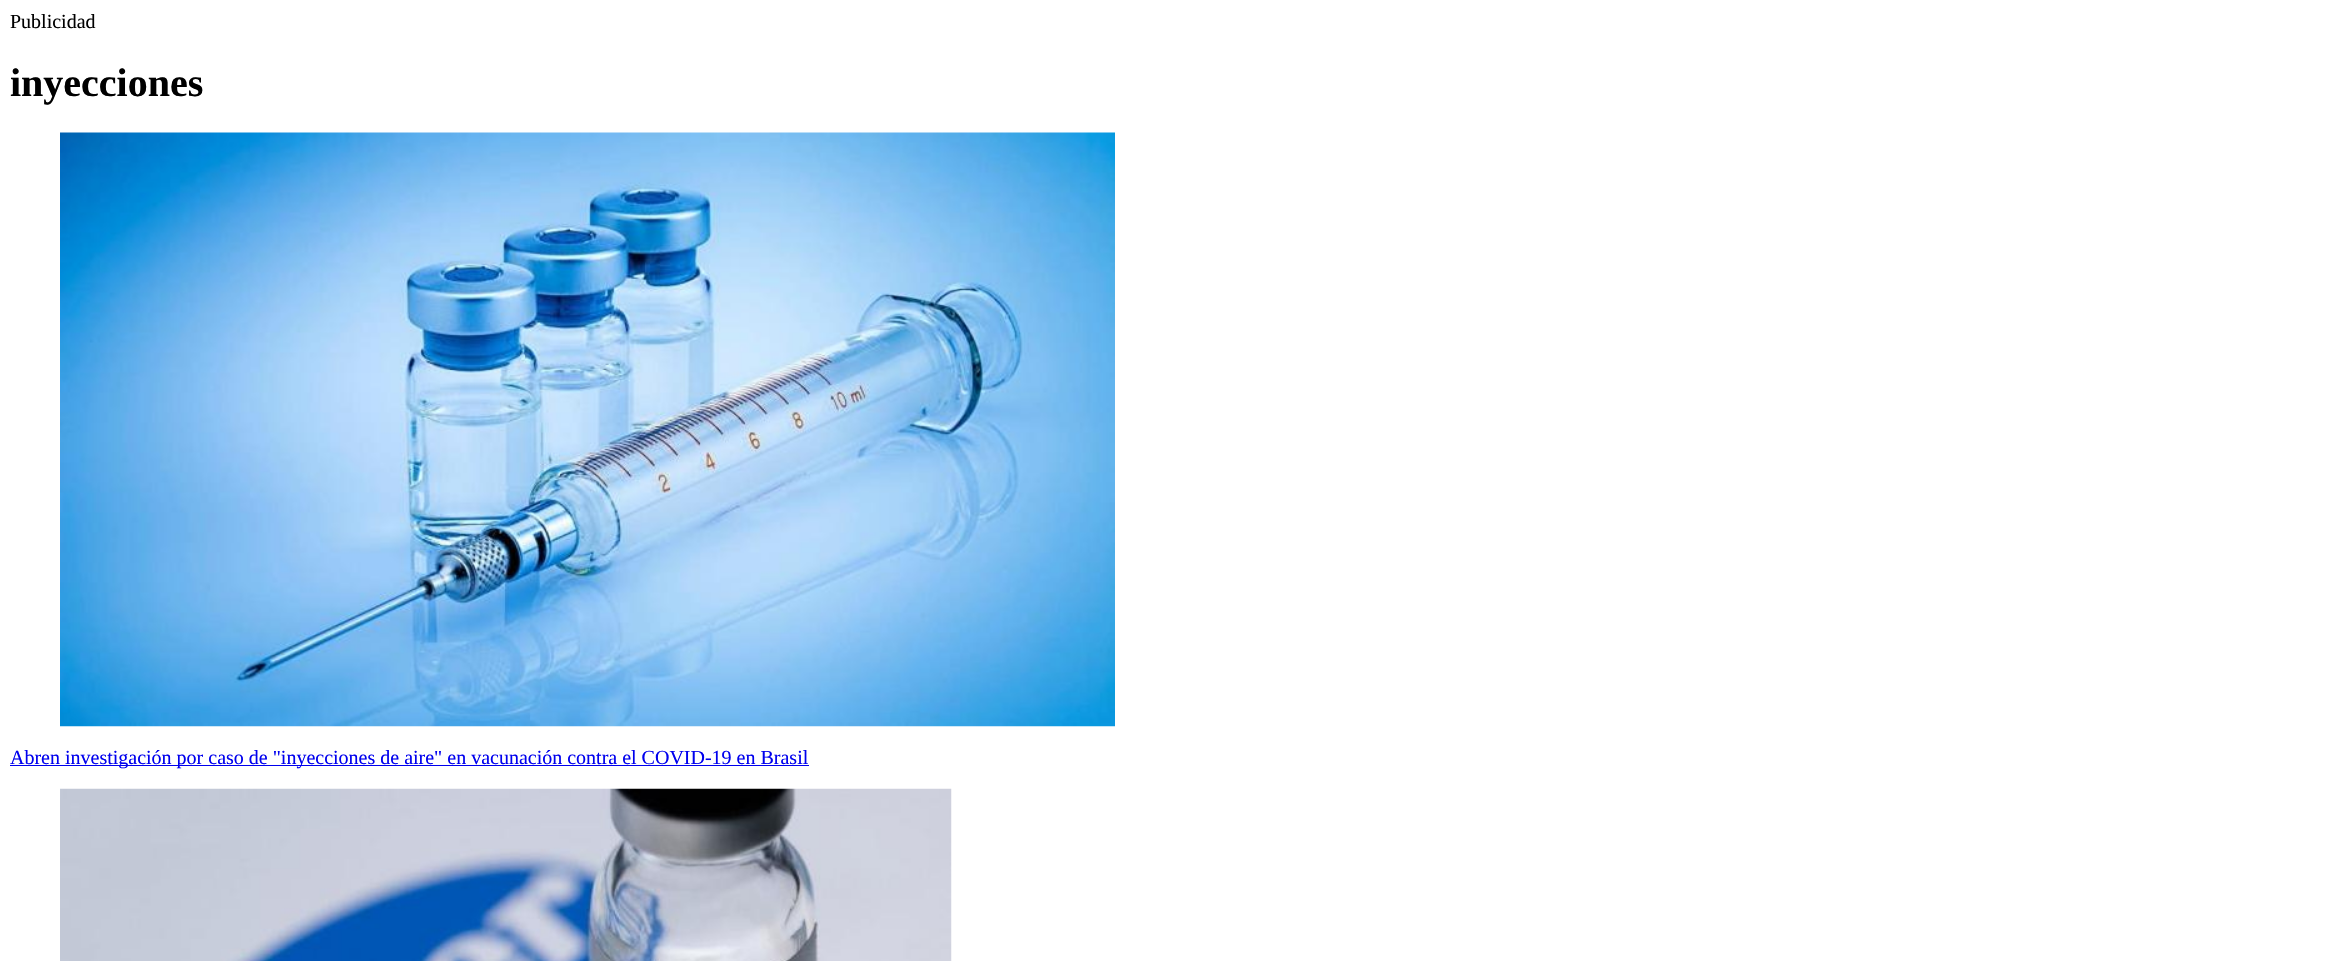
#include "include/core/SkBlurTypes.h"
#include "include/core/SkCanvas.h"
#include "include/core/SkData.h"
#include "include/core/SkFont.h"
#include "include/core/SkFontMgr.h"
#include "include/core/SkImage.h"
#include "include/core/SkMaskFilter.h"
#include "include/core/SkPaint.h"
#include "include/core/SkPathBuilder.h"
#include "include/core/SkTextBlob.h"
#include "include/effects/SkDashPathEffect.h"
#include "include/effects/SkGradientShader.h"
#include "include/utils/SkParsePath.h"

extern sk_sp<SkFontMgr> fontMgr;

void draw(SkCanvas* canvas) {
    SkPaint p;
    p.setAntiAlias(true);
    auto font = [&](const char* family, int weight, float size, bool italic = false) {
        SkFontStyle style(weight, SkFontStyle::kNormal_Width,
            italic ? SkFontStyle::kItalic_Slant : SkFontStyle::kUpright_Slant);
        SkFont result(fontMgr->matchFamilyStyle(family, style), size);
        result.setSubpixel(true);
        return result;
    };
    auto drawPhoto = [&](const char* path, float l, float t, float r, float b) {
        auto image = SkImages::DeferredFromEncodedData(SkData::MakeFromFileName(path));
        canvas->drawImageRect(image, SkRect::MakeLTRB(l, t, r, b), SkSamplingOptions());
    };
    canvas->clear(0xFFFFFFFF);
    auto font1 = font("Liberation Serif", 400, 20);
    p.setColor(0xFF000000);
    canvas->drawString("Publicidad", 10, 28, font1, p);
    auto font2 = font("Liberation Serif", 700, 40);
    canvas->drawString("inyecciones", 10, 96, font2, p);
    drawPhoto("media/1.png", 60, 132, 1115, 727);
    p.setColor(0xFF0000EE);
    canvas->drawRect(SkRect::MakeLTRB(10, 765, 809, 766), p);
    canvas->drawString("Abren investigación por caso de \"inyecciones de aire\" en vacunación contra el COVID-19 en Brasil", 10, 764, font1, p);
    drawPhoto("media/2.png", 60, 788, 952, 961);
}
